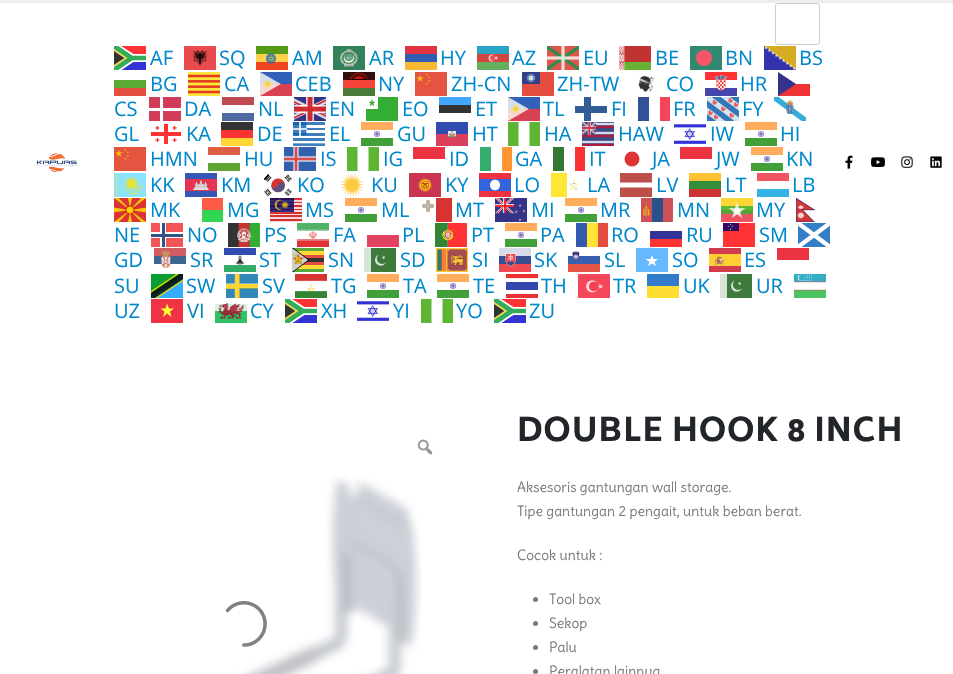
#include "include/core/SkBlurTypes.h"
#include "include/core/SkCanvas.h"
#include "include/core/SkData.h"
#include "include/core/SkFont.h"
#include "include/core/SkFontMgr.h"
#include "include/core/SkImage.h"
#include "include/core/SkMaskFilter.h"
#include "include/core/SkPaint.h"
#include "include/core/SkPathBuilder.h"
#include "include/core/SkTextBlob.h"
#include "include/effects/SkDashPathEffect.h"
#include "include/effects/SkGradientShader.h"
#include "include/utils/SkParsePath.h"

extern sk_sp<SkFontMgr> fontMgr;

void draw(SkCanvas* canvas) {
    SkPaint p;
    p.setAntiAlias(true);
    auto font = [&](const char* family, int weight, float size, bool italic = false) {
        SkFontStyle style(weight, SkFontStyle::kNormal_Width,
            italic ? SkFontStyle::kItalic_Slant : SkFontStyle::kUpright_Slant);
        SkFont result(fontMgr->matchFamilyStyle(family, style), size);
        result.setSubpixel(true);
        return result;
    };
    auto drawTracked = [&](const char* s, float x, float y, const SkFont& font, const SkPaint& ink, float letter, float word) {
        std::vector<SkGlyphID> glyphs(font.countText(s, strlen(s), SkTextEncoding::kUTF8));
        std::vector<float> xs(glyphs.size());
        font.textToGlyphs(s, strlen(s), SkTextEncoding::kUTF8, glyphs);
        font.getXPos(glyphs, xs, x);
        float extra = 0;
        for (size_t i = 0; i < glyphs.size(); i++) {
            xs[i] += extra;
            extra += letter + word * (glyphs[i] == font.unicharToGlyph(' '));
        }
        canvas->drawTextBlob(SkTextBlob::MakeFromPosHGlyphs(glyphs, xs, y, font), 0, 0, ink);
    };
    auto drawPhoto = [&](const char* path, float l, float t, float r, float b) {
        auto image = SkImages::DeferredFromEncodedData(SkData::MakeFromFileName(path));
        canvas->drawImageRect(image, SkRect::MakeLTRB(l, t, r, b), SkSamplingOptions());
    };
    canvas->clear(0xFFFFFFFF);
    p.setColor(0xFFEDEDED);
    canvas->drawRect(SkRect::MakeLTRB(0, 0, 953, 3), p);
    drawPhoto("media/1.png", 36, 153, 77, 172);
    p.setStyle(SkPaint::kStroke_Style);
    p.setStrokeWidth(1);
    p.setColor(0xFFCCCCCC);
    canvas->drawRoundRect(SkRect::MakeLTRB(775.5f, 3.5f, 819.5f, 44.5f), 2.5f, 2.5f, p);
    drawPhoto("media/2.png", 114, 46, 146, 70);
    auto font1 = font("Open Sans", 400, 20);
    p.setStyle(SkPaint::kFill_Style);
    p.setColor(0xFF0088CC);
    canvas->drawString("AF", 150, 65, font1, p);
    drawPhoto("media/3.png", 184, 46, 216, 70);
    canvas->drawString("SQ", 219, 65, font1, p);
    drawPhoto("media/4.png", 256, 46, 288, 70);
    canvas->drawString("AM", 292, 65, font1, p);
    drawPhoto("media/5.png", 333, 46, 365, 70);
    canvas->drawString("AR", 369, 65, font1, p);
    canvas->drawString("HY", 440, 65, font1, p);
    {
        const struct { float l, t, r, b; SkColor color; } items[] = {
            {405, 62, 437, 70, 0xFFF5B933},
            {405, 54, 437, 62, 0xFF335CB3},
            {405, 46, 437, 54, 0xFFE13341},
        };
        for (auto [l, t, r, b, color] : items) {
            p.setColor(color);
            canvas->drawRect(SkRect::MakeLTRB(l, t, r, b), p);
        }
    }
    drawPhoto("media/6.png", 477, 46, 509, 70);
    p.setColor(0xFF0088CC);
    canvas->drawString("AZ", 512, 65, font1, p);
    drawPhoto("media/7.png", 547, 46, 579, 70);
    canvas->drawString("EU", 583, 65, font1, p);
    drawPhoto("media/8.png", 619, 46, 651, 70);
    canvas->drawString("BE", 655, 65, font1, p);
    canvas->drawString("BN", 725, 65, font1, p);
    p.setColor(0xFF338871);
    canvas->drawRect(SkRect::MakeLTRB(690, 46, 722, 70), p);
    p.setColor(0xFFF65567);
    canvas->drawCircle(704, 58, 8, p);
    drawPhoto("media/9.png", 764, 46, 796, 70);
    p.setColor(0xFF0088CC);
    canvas->drawString("BS", 799, 65, font1, p);
    canvas->drawString("BG", 150, 91, font1, p);
    p.setColor(0xFFE54D40);
    canvas->drawRect(SkRect::MakeLTRB(114, 88, 146, 96), p);
    p.setColor(0xFF5AA933);
    canvas->drawRect(SkRect::MakeLTRB(114, 80, 146, 88), p);
    drawPhoto("media/10.png", 188, 72, 220, 96);
    p.setColor(0xFF0088CC);
    canvas->drawString("CA", 224, 91, font1, p);
    drawPhoto("media/11.png", 260, 72, 292, 96);
    canvas->drawString("CEB", 295, 91, font1, p);
    drawPhoto("media/12.png", 343, 72, 375, 96);
    canvas->drawString("NY", 378, 91, font1, p);
    drawPhoto("media/13.png", 415, 72, 447, 96);
    canvas->drawString("ZH-CN", 451, 91, font1, p);
    drawPhoto("media/14.png", 522, 72, 554, 96);
    canvas->drawString("ZH-TW", 557, 91, font1, p);
    drawPhoto("media/15.png", 638, 76, 654, 92);
    canvas->drawString("CO", 666, 91, font1, p);
    drawPhoto("media/16.png", 705, 72, 737, 96);
    canvas->drawString("HR", 740, 91, font1, p);
    canvas->drawString("CS", 114, 116, font1, p);
    p.setColor(0xFFED3333);
    canvas->drawRect(SkRect::MakeLTRB(778, 84, 810, 96), p);
    p.setColor(0xFF33338C);
    canvas->drawPath(SkPathBuilder(SkPathFillType::kEvenOdd).moveTo(778, 72).lineTo(796, 84).lineTo(778, 96).close().detach(), p);
    p.setColor(0xFF0088CC);
    canvas->drawString("DA", 184, 116, font1, p);
    {
        const struct { float l, t, r, b; SkColor color; } items[] = {
            {149, 97, 181, 121, 0xFFD13D59},
            {160, 97, 163, 121, 0xFFFFFFFF},
            {149, 108, 181, 111, 0xFFFFFFFF},
        };
        for (auto [l, t, r, b, color] : items) {
            p.setColor(color);
            canvas->drawRect(SkRect::MakeLTRB(l, t, r, b), p);
        }
    }
    p.setColor(0xFF0088CC);
    canvas->drawString("NL", 258, 116, font1, p);
    p.setColor(0xFF4D6BA2);
    canvas->drawRect(SkRect::MakeLTRB(222, 113, 254, 121), p);
    p.setColor(0xFFBE4953);
    canvas->drawRect(SkRect::MakeLTRB(222, 97, 254, 105), p);
    drawPhoto("media/17.png", 294, 97, 326, 121);
    p.setColor(0xFF0088CC);
    canvas->drawString("EN", 329, 116, font1, p);
    drawPhoto("media/18.png", 366, 97, 398, 121);
    canvas->drawString("EO", 402, 116, font1, p);
    canvas->drawString("ET", 475, 116, font1, p);
    p.setColor(0xFF333333);
    canvas->drawRect(SkRect::MakeLTRB(439, 105, 471, 113), p);
    p.setColor(0xFF41A7FF);
    canvas->drawRect(SkRect::MakeLTRB(439, 97, 471, 105), p);
    drawPhoto("media/11.png", 508, 97, 540, 121);
    p.setColor(0xFF0088CC);
    canvas->drawString("TL", 543, 116, font1, p);
    canvas->drawString("FI", 611, 116, font1, p);
    p.setColor(0xFF335D99);
    canvas->drawRect(SkRect::MakeLTRB(575, 106, 607, 113), p);
    canvas->drawRect(SkRect::MakeLTRB(584, 97, 591, 121), p);
    p.setColor(0xFF0088CC);
    canvas->drawString("FR", 673, 116, font1, p);
    p.setColor(0xFF335199);
    canvas->drawRect(SkRect::MakeLTRB(638, 97, 649, 121), p);
    p.setColor(0xFFF54659);
    canvas->drawRect(SkRect::MakeLTRB(660, 97, 670, 121), p);
    drawPhoto("media/19.png", 707, 97, 739, 121);
    p.setColor(0xFF0088CC);
    canvas->drawString("FY", 742, 116, font1, p);
    drawPhoto("media/20.png", 774, 97, 806, 121);
    canvas->drawString("GL", 114, 141, font1, p);
    drawPhoto("media/21.png", 150, 123, 182, 145);
    canvas->drawString("KA", 186, 141, font1, p);
    canvas->drawString("DE", 257, 141, font1, p);
    {
        const struct { float l, t, r, b; SkColor color; } items[] = {
            {221, 138, 253, 146, 0xFFFFD633},
            {221, 122, 253, 130, 0xFF333333},
            {221, 130, 253, 138, 0xFFFF3333},
        };
        for (auto [l, t, r, b, color] : items) {
            p.setColor(color);
            canvas->drawRect(SkRect::MakeLTRB(l, t, r, b), p);
        }
    }
    drawPhoto("media/22.png", 293, 122, 325, 146);
    p.setColor(0xFF0088CC);
    canvas->drawString("EL", 329, 141, font1, p);
    drawPhoto("media/23.png", 361, 122, 393, 146);
    canvas->drawString("GU", 397, 141, font1, p);
    drawPhoto("media/24.png", 436, 122, 468, 146);
    canvas->drawString("HT", 472, 141, font1, p);
    canvas->drawString("HA", 544, 141, font1, p);
    p.setColor(0xFF5EB433);
    canvas->drawPath(SkPathBuilder(SkPathFillType::kEvenOdd).moveTo(529.5f, 122).lineTo(540, 122).lineTo(540, 146).lineTo(529.5f, 146).close().moveTo(508, 122).lineTo(518.5f, 122).lineTo(518.5f, 146).lineTo(508, 146).close().detach(), p);
    drawPhoto("media/25.png", 582, 122, 614, 146);
    p.setColor(0xFF0088CC);
    canvas->drawString("HAW", 618, 141, font1, p);
    drawPhoto("media/26.png", 674, 124, 706, 144);
    canvas->drawString("IW", 710, 141, font1, p);
    drawPhoto("media/23.png", 745, 122, 777, 146);
    canvas->drawString("HI", 780, 141, font1, p);
    drawPhoto("media/13.png", 114, 147, 146, 171);
    canvas->drawString("HMN", 150, 166, font1, p);
    canvas->drawString("HU", 244, 166, font1, p);
    p.setColor(0xFF60A433);
    canvas->drawRect(SkRect::MakeLTRB(208, 163, 240, 171), p);
    p.setColor(0xFFDD5D45);
    canvas->drawRect(SkRect::MakeLTRB(208, 147, 240, 155), p);
    drawPhoto("media/27.png", 284, 147, 316, 171);
    p.setColor(0xFF0088CC);
    canvas->drawString("IS", 320, 166, font1, p);
    canvas->drawString("IG", 383, 166, font1, p);
    p.setColor(0xFF5EB433);
    canvas->drawPath(SkPathBuilder(SkPathFillType::kEvenOdd).moveTo(368.5f, 147).lineTo(379, 147).lineTo(379, 171).lineTo(368.5f, 171).close().moveTo(347, 147).lineTo(357.5f, 147).lineTo(357.5f, 171).lineTo(347, 171).close().detach(), p);
    p.setColor(0xFF0088CC);
    canvas->drawString("ID", 449, 166, font1, p);
    p.setColor(0xFFEC3341);
    canvas->drawRect(SkRect::MakeLTRB(413, 147, 445, 159), p);
    p.setColor(0xFF0088CC);
    canvas->drawString("GA", 515, 166, font1, p);
    p.setColor(0xFF33AE6D);
    canvas->drawRect(SkRect::MakeLTRB(480, 147, 491, 171), p);
    p.setColor(0xFFFF9433);
    canvas->drawRect(SkRect::MakeLTRB(502, 147, 512, 171), p);
    p.setColor(0xFF0088CC);
    canvas->drawString("IT", 589, 166, font1, p);
    p.setColor(0xFF337933);
    canvas->drawRect(SkRect::MakeLTRB(553, 147, 564, 171), p);
    p.setColor(0xFFFD3333);
    canvas->drawRect(SkRect::MakeLTRB(575, 147, 585, 171), p);
    p.setColor(0xFF0088CC);
    canvas->drawString("JA", 652, 166, font1, p);
    p.setColor(0xFFDC3333);
    canvas->drawCircle(632, 159, 7.5f, p);
    p.setColor(0xFF0088CC);
    canvas->drawString("JW", 716, 166, font1, p);
    p.setColor(0xFFEC3341);
    canvas->drawRect(SkRect::MakeLTRB(680, 147, 712, 159), p);
    drawPhoto("media/23.png", 751, 147, 783, 171);
    p.setColor(0xFF0088CC);
    canvas->drawString("KN", 786, 166, font1, p);
    drawPhoto("media/28.png", 114, 173, 146, 197);
    canvas->drawString("KK", 150, 192, font1, p);
    drawPhoto("media/29.png", 185, 173, 217, 197);
    canvas->drawString("KM", 221, 192, font1, p);
    drawPhoto("media/30.png", 264, 174, 292, 197);
    canvas->drawString("KO", 297, 192, font1, p);
    drawPhoto("media/31.png", 340, 173, 364, 197);
    canvas->drawString("KU", 371, 192, font1, p);
    drawPhoto("media/32.png", 409, 173, 441, 197);
    canvas->drawString("KY", 445, 192, font1, p);
    canvas->drawString("LO", 514, 192, font1, p);
    p.setColor(0xFFED3341);
    canvas->drawRect(SkRect::MakeLTRB(479, 173, 511, 197), p);
    p.setColor(0xFF3364DB);
    canvas->drawRect(SkRect::MakeLTRB(479, 179, 511, 191), p);
    p.setColor(0xFFFFFFFF);
    canvas->drawPath(SkPathBuilder(SkPathFillType::kEvenOdd).moveTo(500, 185).cubicTo(500, 192, 490, 192, 490, 185).cubicTo(490, 178, 500, 178, 500, 185).close().detach(), p);
    drawPhoto("media/33.png", 551, 173, 581, 197);
    p.setColor(0xFF0088CC);
    canvas->drawString("LA", 587, 192, font1, p);
    canvas->drawString("LV", 656, 192, font1, p);
    p.setColor(0xFFBC4F4A);
    canvas->drawPath(SkPathBuilder(SkPathFillType::kEvenOdd).moveTo(620, 173).lineTo(652, 173).lineTo(652, 182.5f).lineTo(620, 182.5f).close().moveTo(620, 187.5f).lineTo(652, 187.5f).lineTo(652, 197).lineTo(620, 197).close().detach(), p);
    p.setColor(0xFF0088CC);
    canvas->drawString("LT", 725, 192, font1, p);
    {
        const struct { float l, t, r, b; SkColor color; } items[] = {
            {689, 181, 721, 189, 0xFF338F39},
            {689, 189, 721, 197, 0xFFCC3333},
            {689, 173, 721, 181, 0xFFFFC233},
        };
        for (auto [l, t, r, b, color] : items) {
            p.setColor(color);
            canvas->drawRect(SkRect::MakeLTRB(l, t, r, b), p);
        }
    }
    p.setColor(0xFF0088CC);
    canvas->drawString("LB", 792, 192, font1, p);
    p.setColor(0xFF33B4E5);
    canvas->drawRect(SkRect::MakeLTRB(757, 189, 789, 197), p);
    p.setColor(0xFFF15461);
    canvas->drawRect(SkRect::MakeLTRB(757, 173, 789, 181), p);
    drawPhoto("media/34.png", 114, 198, 146, 222);
    p.setColor(0xFF0088CC);
    canvas->drawString("MK", 150, 217, font1, p);
    canvas->drawString("MG", 227, 217, font1, p);
    p.setColor(0xFFFF5C47);
    canvas->drawRect(SkRect::MakeLTRB(202, 198, 223, 210), p);
    p.setColor(0xFF33D653);
    canvas->drawRect(SkRect::MakeLTRB(202, 210, 223, 222), p);
    drawPhoto("media/35.png", 270, 198, 302, 222);
    p.setColor(0xFF0088CC);
    canvas->drawString("MS", 305, 217, font1, p);
    drawPhoto("media/23.png", 345, 198, 377, 222);
    canvas->drawString("ML", 381, 217, font1, p);
    drawPhoto("media/36.png", 422, 198, 452, 222);
    canvas->drawString("MT", 455, 217, font1, p);
    drawPhoto("media/37.png", 495, 198, 527, 222);
    canvas->drawString("MI", 531, 217, font1, p);
    drawPhoto("media/23.png", 565, 198, 597, 222);
    canvas->drawString("MR", 600, 217, font1, p);
    drawPhoto("media/38.png", 641, 198, 673, 222);
    canvas->drawString("MN", 677, 217, font1, p);
    drawPhoto("media/39.png", 721, 198, 753, 222);
    canvas->drawString("MY", 756, 217, font1, p);
    drawPhoto("media/40.png", 796, 198, 816, 222);
    canvas->drawString("NE", 114, 242, font1, p);
    canvas->drawString("NO", 187, 242, font1, p);
    {
        const struct { float l, t, r, b; SkColor color; } items[] = {
            {151, 223, 183, 247, 0xFFF25557},
            {160, 223, 166, 247, 0xFFFFFFFF},
            {151, 232, 183, 238, 0xFFFFFFFF},
            {162, 223, 165, 247, 0xFF335386},
            {151, 234, 183, 237, 0xFF335386},
        };
        for (auto [l, t, r, b, color] : items) {
            p.setColor(color);
            canvas->drawRect(SkRect::MakeLTRB(l, t, r, b), p);
        }
    }
    drawPhoto("media/41.png", 228, 223, 260, 247);
    p.setColor(0xFF0088CC);
    canvas->drawString("PS", 264, 242, font1, p);
    drawPhoto("media/42.png", 297, 223, 329, 247);
    canvas->drawString("FA", 333, 242, font1, p);
    canvas->drawString("PL", 402, 242, font1, p);
    p.setColor(0xFFE34363);
    canvas->drawRect(SkRect::MakeLTRB(367, 235, 399, 247), p);
    drawPhoto("media/43.png", 435, 223, 467, 247);
    p.setColor(0xFF0088CC);
    canvas->drawString("PT", 471, 242, font1, p);
    drawPhoto("media/23.png", 505, 223, 537, 247);
    canvas->drawString("PA", 540, 242, font1, p);
    canvas->drawString("RO", 611, 242, font1, p);
    {
        const struct { float l, t, r, b; SkColor color; } items[] = {
            {576, 223, 587, 247, 0xFF335AB0},
            {587, 223, 598, 247, 0xFFFFE533},
            {598, 223, 608, 247, 0xFFE54D40},
        };
        for (auto [l, t, r, b, color] : items) {
            p.setColor(color);
            canvas->drawRect(SkRect::MakeLTRB(l, t, r, b), p);
        }
    }
    p.setColor(0xFF0088CC);
    canvas->drawString("RU", 686, 242, font1, p);
    p.setColor(0xFF343498);
    canvas->drawRect(SkRect::MakeLTRB(650, 231, 682, 239), p);
    p.setColor(0xFFFE3434);
    canvas->drawRect(SkRect::MakeLTRB(650, 239, 682, 247), p);
    drawPhoto("media/44.png", 723, 223, 755, 247);
    p.setColor(0xFF0088CC);
    canvas->drawString("SM", 759, 242, font1, p);
    canvas->drawString("GD", 114, 267, font1, p);
    p.setColor(0xFF337EC6);
    canvas->drawRect(SkRect::MakeLTRB(798, 223, 830, 247), p);
    canvas->save();
    canvas->clipRect(SkRect::MakeLTRB(798, 223, 830, 247));
    p.setStyle(SkPaint::kStroke_Style);
    p.setStrokeWidth(4.3f);
    p.setColor(0xFFFFFFFF);
    canvas->drawPath(SkPathBuilder().moveTo(798, 223).lineTo(830, 247).moveTo(798, 247).lineTo(830, 223).detach(), p);
    canvas->restore();
    drawPhoto("media/45.png", 154, 248, 186, 268);
    p.setStyle(SkPaint::kFill_Style);
    p.setColor(0xFF0088CC);
    canvas->drawString("SR", 190, 267, font1, p);
    drawPhoto("media/46.png", 224, 248, 256, 272);
    canvas->drawString("ST", 259, 267, font1, p);
    drawPhoto("media/47.png", 292, 248, 324, 272);
    canvas->drawString("SN", 328, 267, font1, p);
    drawPhoto("media/48.png", 364, 248, 396, 272);
    canvas->drawString("SD", 400, 267, font1, p);
    drawPhoto("media/49.png", 436, 248, 468, 272);
    canvas->drawString("SI", 472, 267, font1, p);
    drawPhoto("media/50.png", 499, 248, 531, 272);
    canvas->drawString("SK", 534, 267, font1, p);
    drawPhoto("media/51.png", 568, 251, 600, 272);
    canvas->drawString("SL", 604, 267, font1, p);
    canvas->drawString("SO", 672, 267, font1, p);
    p.setColor(0xFF66B8FF);
    canvas->drawRect(SkRect::MakeLTRB(636, 248, 668, 272), p);
    p.setColor(0xFFFFFFFF);
    canvas->drawPath(SkPathBuilder(SkPathFillType::kEvenOdd).moveTo(656, 266).lineTo(652, 263.5f).lineTo(648, 266).lineTo(649.5f, 262).lineTo(645.5f, 259).lineTo(650.5f, 259).lineTo(652, 255).lineTo(653.5f, 259).lineTo(658, 259).lineTo(654.5f, 262).close().detach(), p);
    drawPhoto("media/52.png", 709, 248, 741, 272);
    p.setColor(0xFF0088CC);
    canvas->drawString("ES", 744, 267, font1, p);
    canvas->drawString("SU", 114, 293, font1, p);
    p.setColor(0xFFEC3341);
    canvas->drawRect(SkRect::MakeLTRB(777, 248, 809, 260), p);
    drawPhoto("media/53.png", 151, 274, 183, 298);
    p.setColor(0xFF0088CC);
    canvas->drawString("SW", 186, 293, font1, p);
    drawPhoto("media/54.png", 226, 274, 258, 298);
    canvas->drawString("SV", 262, 293, font1, p);
    drawPhoto("media/55.png", 295, 274, 327, 298);
    canvas->drawString("TG", 331, 293, font1, p);
    drawPhoto("media/23.png", 367, 274, 399, 298);
    canvas->drawString("TA", 403, 293, font1, p);
    drawPhoto("media/23.png", 437, 274, 469, 298);
    canvas->drawString("TE", 473, 293, font1, p);
    drawPhoto("media/56.png", 506, 274, 538, 298);
    canvas->drawString("TH", 541, 293, font1, p);
    drawPhoto("media/57.png", 578, 274, 610, 298);
    canvas->drawString("TR", 613, 293, font1, p);
    canvas->drawString("UK", 683, 293, font1, p);
    p.setColor(0xFFFFDD33);
    canvas->drawRect(SkRect::MakeLTRB(647, 286, 679, 298), p);
    p.setColor(0xFF337CC9);
    canvas->drawRect(SkRect::MakeLTRB(647, 274, 679, 286), p);
    drawPhoto("media/48.png", 720, 274, 752, 298);
    p.setColor(0xFF0088CC);
    canvas->drawString("UR", 756, 293, font1, p);
    drawPhoto("media/58.png", 794, 274, 826, 298);
    canvas->drawString("UZ", 114, 318, font1, p);
    canvas->drawString("VI", 187, 318, font1, p);
    p.setColor(0xFFF03344);
    canvas->drawRect(SkRect::MakeLTRB(151, 299, 183, 323), p);
    p.setColor(0xFFFFFF33);
    canvas->drawPath(SkPathBuilder(SkPathFillType::kEvenOdd).moveTo(171.5f, 317).lineTo(167, 313.5f).lineTo(163, 317).lineTo(164.5f, 311.5f).lineTo(160.5f, 308.5f).lineTo(165.5f, 308.5f).lineTo(167, 303.5f).lineTo(169, 308.5f).lineTo(174, 308.5f).lineTo(170, 311.5f).close().detach(), p);
    drawPhoto("media/59.png", 215, 303, 247, 323);
    p.setColor(0xFF0088CC);
    canvas->drawString("CY", 250, 318, font1, p);
    drawPhoto("media/2.png", 285, 299, 317, 323);
    canvas->drawString("XH", 321, 318, font1, p);
    drawPhoto("media/26.png", 357, 301, 389, 321);
    canvas->drawString("YI", 393, 318, font1, p);
    canvas->drawString("YO", 456, 318, font1, p);
    p.setColor(0xFF5EB433);
    canvas->drawPath(SkPathBuilder(SkPathFillType::kEvenOdd).moveTo(442.5f, 299).lineTo(453, 299).lineTo(453, 323).lineTo(442.5f, 323).close().moveTo(421, 299).lineTo(431.5f, 299).lineTo(431.5f, 323).lineTo(421, 323).close().detach(), p);
    drawPhoto("media/2.png", 494, 299, 526, 323);
    p.setColor(0xFF0088CC);
    canvas->drawString("ZU", 529, 318, font1, p);
    drawPhoto("media/60.png", 845, 155, 853, 169);
    drawPhoto("media/61.png", 871, 157, 885, 167);
    drawPhoto("media/62.png", 901, 156, 913, 168);
    drawPhoto("media/63.png", 930, 156, 942, 168);
    drawPhoto("media/64.png", 417, 439, 433, 455);
    drawPhoto("media/65.png", 237, 476, 422, 674);
    drawPhoto("media/66.png", 225, 601, 267, 647);
    auto font2 = font("Biryani", 800, 32);
    p.setColor(0xFF222529);
    drawTracked("DOUBLE HOOK 8 INCH", 517, 441, font2, p, 1, 0);
    auto font3 = font("Delius", 400, 14);
    p.setColor(0xFF7A7A7A);
    {
        const struct { const char* s; float x, y; } items[] = {
            {"Aksesoris gantungan wall storage.", 517, 492},
            {"Tipe gantungan 2 pengait, untuk beban berat.", 517, 516},
            {"Cocok untuk :", 517, 560},
        };
        for (auto [s, x, y] : items) {
            canvas->drawString(s, x, y, font3, p);
        }
    }
    canvas->drawCircle(535.5f, 599.5f, 2.5f, p);
    canvas->drawString("Tool box", 549, 604, font3, p);
    canvas->drawCircle(535.5f, 623.5f, 2.5f, p);
    canvas->drawString("Sekop", 549, 628, font3, p);
    canvas->drawCircle(535.5f, 647.5f, 2.5f, p);
    canvas->drawString("Palu", 549, 652, font3, p);
    canvas->drawCircle(535.5f, 671.5f, 2.5f, p);
    canvas->drawString("Peralatan lainnya", 549, 676, font3, p);
}
